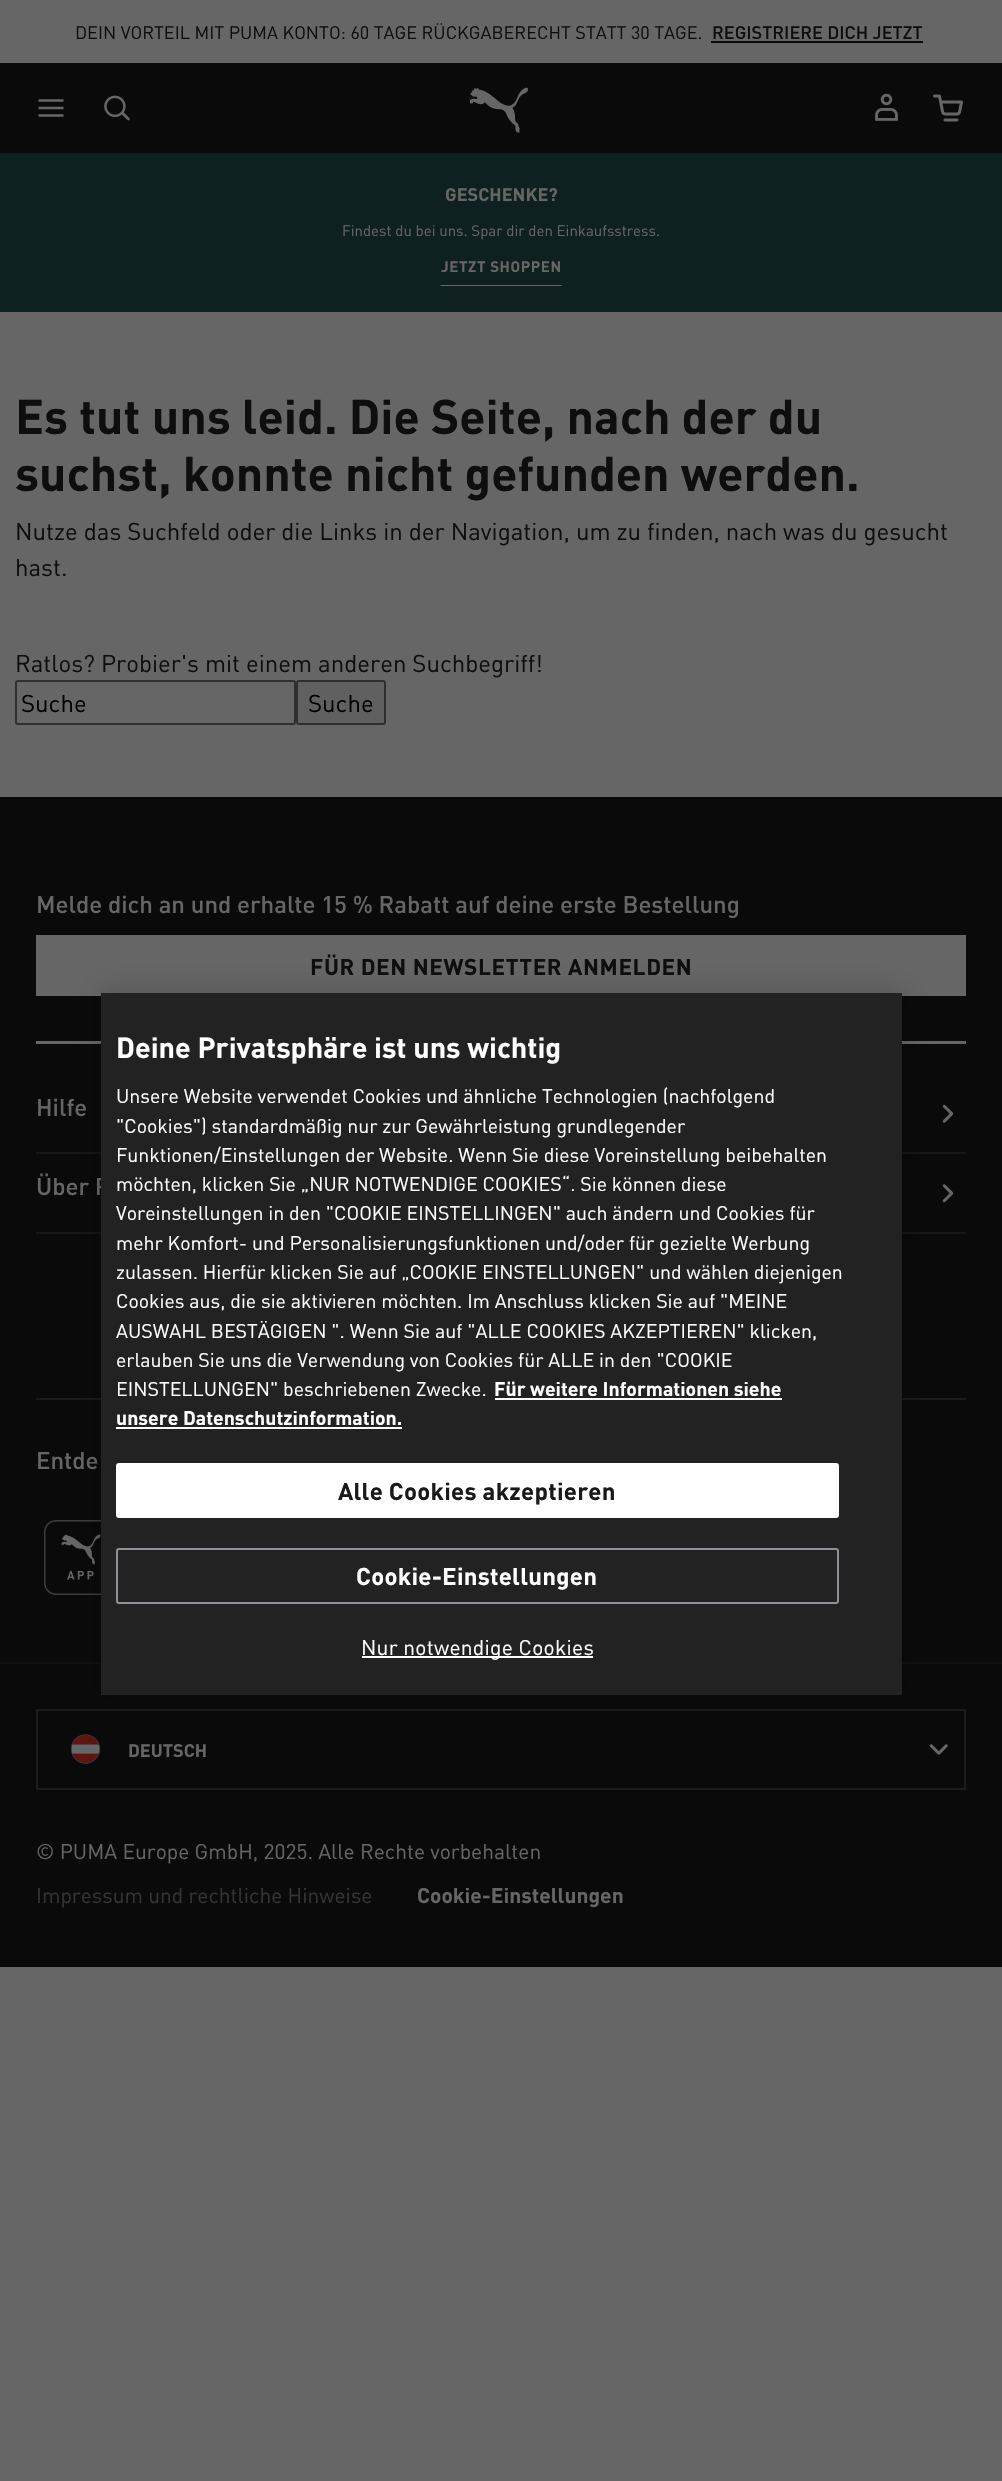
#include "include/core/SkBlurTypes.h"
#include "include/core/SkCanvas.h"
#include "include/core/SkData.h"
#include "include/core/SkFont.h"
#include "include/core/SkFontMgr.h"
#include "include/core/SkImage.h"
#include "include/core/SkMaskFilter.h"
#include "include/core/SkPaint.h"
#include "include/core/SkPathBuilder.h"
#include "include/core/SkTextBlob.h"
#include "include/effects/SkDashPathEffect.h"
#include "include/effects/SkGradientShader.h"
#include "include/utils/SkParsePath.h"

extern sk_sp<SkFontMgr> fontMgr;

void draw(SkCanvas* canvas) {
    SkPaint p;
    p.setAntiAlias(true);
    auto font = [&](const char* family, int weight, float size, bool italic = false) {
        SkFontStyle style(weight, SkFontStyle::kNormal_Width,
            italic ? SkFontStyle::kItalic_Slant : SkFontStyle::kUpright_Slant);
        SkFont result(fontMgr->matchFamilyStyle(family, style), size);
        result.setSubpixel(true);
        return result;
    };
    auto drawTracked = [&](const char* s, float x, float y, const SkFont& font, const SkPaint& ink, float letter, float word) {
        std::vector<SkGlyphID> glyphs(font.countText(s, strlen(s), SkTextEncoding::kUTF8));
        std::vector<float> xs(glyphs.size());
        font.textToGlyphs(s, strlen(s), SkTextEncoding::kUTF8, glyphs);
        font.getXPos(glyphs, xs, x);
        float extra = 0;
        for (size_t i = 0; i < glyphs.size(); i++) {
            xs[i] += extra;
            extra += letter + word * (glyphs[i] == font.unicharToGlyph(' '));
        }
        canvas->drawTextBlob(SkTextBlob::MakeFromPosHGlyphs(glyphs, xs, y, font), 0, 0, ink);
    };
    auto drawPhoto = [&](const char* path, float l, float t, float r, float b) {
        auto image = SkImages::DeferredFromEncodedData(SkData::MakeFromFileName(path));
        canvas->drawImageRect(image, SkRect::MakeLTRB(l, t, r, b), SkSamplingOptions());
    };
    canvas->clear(0xFF666666);
    auto font1 = font("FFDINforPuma", 400, 18);
    p.setColor(0xFF0E0E0E);
    canvas->drawString("DEIN VORTEIL MIT PUMA KONTO: 60 TAGE RÜCKGABERECHT STATT 30 TAGE.", 75, 39, font1, p);
    auto font2 = font("FFDINforPuma", 500, 18);
    canvas->drawString("REGISTRIERE DICH JETZT", 712, 39, font2, p);
    p.setColor(0xFF0A0A0A);
    canvas->drawRect(SkRect::MakeLTRB(711, 41, 923, 43), p);
    canvas->drawRect(SkRect::MakeLTRB(0, 63, 1002, 153), p);
    drawPhoto("media/1.png", 38, 99, 64, 117);
    drawPhoto("media/2.png", 104, 95, 130, 121);
    drawPhoto("media/3.png", 470, 87, 528, 133);
    drawPhoto("media/4.png", 875, 93, 898, 121);
    drawPhoto("media/5.png", 933, 94, 963, 122);
    p.setColor(0xFF0E201F);
    canvas->drawRect(SkRect::MakeLTRB(0, 153, 1002, 312), p);
    auto font3 = font("FFDINforPuma", 700, 18);
    p.setColor(0xFF666666);
    canvas->drawString("GESCHENKE?", 445, 201, font3, p);
    auto font4 = font("FFDINforPuma", 400, 15);
    canvas->drawString("Findest du bei uns. Spar dir den Einkaufsstress.", 342, 236, font4, p);
    canvas->drawPath(SkPathBuilder().moveTo(562, 286).lineTo(440, 286).lineTo(441, 285).lineTo(561, 285).close().detach(), p);
    auto font5 = font("FFDINforPuma", 700, 15);
    drawTracked("JETZT SHOPPEN", 441, 272, font5, p, 0.6f, 0);
    auto font6 = font("FFDINforPuma", 700, 48);
    p.setColor(0xFF0E0E0E);
    canvas->drawString("Es tut uns leid. Die Seite, nach der du", 15, 434, font6, p);
    canvas->drawString("suchst, konnte nicht gefunden werden.", 15, 491, font6, p);
    auto font7 = font("FFDINforPuma", 400, 24);
    {
        const struct { const char* s; float x, y; } items[] = {
            {"Nutze das Suchfeld oder die Links in der Navigation, um zu finden, nach was du gesucht", 15, 540},
            {"hast.", 15, 576},
            {"Ratlos? Probier's mit einem anderen Suchbegriff!", 15, 672},
        };
        for (auto [s, x, y] : items) {
            canvas->drawString(s, x, y, font7, p);
        }
    }
    p.setStyle(SkPaint::kStroke_Style);
    p.setStrokeWidth(2);
    p.setColor(0xFF2F2F2F);
    canvas->drawRoundRect(SkRect::MakeLTRB(16, 681, 295, 724), 2, 2, p);
    p.setStyle(SkPaint::kFill_Style);
    p.setColor(0xFF000000);
    canvas->drawString("Suche", 21, 712, font7, p);
    p.setColor(0xFF606060);
    canvas->drawRoundRect(SkRect::MakeLTRB(297, 681, 385, 724), 2, 2, p);
    p.setStyle(SkPaint::kStroke_Style);
    p.setColor(0xFF2F2F2F);
    canvas->drawRoundRect(SkRect::MakeLTRB(297, 681, 385, 724), 2, 2, p);
    p.setStyle(SkPaint::kFill_Style);
    p.setColor(0xFF000000);
    canvas->drawString("Suche", 308, 712, font7, p);
    p.setColor(0xFF0A0A0A);
    canvas->drawRect(SkRect::MakeLTRB(0, 797, 1002, 1662), p);
    auto font8 = font("FFDINforPuma", 500, 24);
    p.setColor(0xFF666666);
    canvas->drawString("Melde dich an und erhalte 15 % Rabatt auf deine erste Bestellung", 36, 913, font8, p);
    canvas->drawRect(SkRect::MakeLTRB(36, 935, 966, 996), p);
    auto font9 = font("FFDINforPuma", 700, 22.5f);
    p.setColor(0xFF0E0E0E);
    drawTracked("FÜR DEN NEWSLETTER ANMELDEN", 310, 975, font9, p, 0.6f, 0);
    p.setColor(0xFF666666);
    canvas->drawRect(SkRect::MakeLTRB(36, 1041, 966, 1044), p);
    p.setColor(0xFF161616);
    canvas->drawRect(SkRect::MakeLTRB(36, 1152, 966, 1154), p);
    p.setColor(0xFF666666);
    canvas->drawString("Hilfe", 36, 1116, font8, p);
    drawPhoto("media/6.png", 942, 1104, 954, 1123);
    p.setColor(0xFF161616);
    canvas->drawRect(SkRect::MakeLTRB(36, 1232, 966, 1234), p);
    p.setColor(0xFF666666);
    canvas->drawString("Über P", 36, 1195, font8, p);
    drawPhoto("media/7.png", 942, 1184, 954, 1203);
    p.setColor(0xFF1B1B1B);
    canvas->drawRect(SkRect::MakeLTRB(36, 1398, 966, 1400), p);
    p.setColor(0xFF666666);
    canvas->drawString("Entde", 36, 1469, font8, p);
    drawPhoto("media/8.png", 44, 1520, 101, 1595);
    p.setColor(0xFF0A0A0A);
    canvas->drawRect(SkRect::MakeLTRB(0, 1664, 1002, 1967), p);
    p.setColor(0xFF121212);
    canvas->drawRect(SkRect::MakeLTRB(0, 1662, 1002, 1664), p);
    p.setStyle(SkPaint::kStroke_Style);
    p.setColor(0xFF1C1C1C);
    canvas->drawRect(SkRect::MakeLTRB(37, 1710, 965, 1789), p);
    drawPhoto("media/9.png", 71, 1734, 100, 1764);
    p.setStyle(SkPaint::kFill_Style);
    p.setColor(0xFF666666);
    canvas->drawString("DEUTSCH", 128, 1757, font3, p);
    drawPhoto("media/10.png", 929, 1744, 948, 1755);
    auto font10 = font("FFDINforPuma", 400, 21);
    canvas->drawString("© PUMA Europe GmbH, 2025. Alle Rechte vorbehalten", 36, 1859, font10, p);
    p.setColor(0xFF343434);
    canvas->drawString("Impressum und rechtliche Hinweise", 36, 1903, font10, p);
    auto font11 = font("FFDINforPuma", 700, 21);
    p.setColor(0xFF666666);
    canvas->drawString("Cookie-Einstellungen", 417, 1903, font11, p);
    p.setColor(0x33000000);
    p.setMaskFilter(SkMaskFilter::MakeBlur(kNormal_SkBlurStyle, 13.5f));
    canvas->drawRect(SkRect::MakeLTRB(101, 993, 902, 1695), p);
    p.setMaskFilter(nullptr);
    p.setColor(0xFF222222);
    canvas->drawRect(SkRect::MakeLTRB(101, 993, 902, 1695), p);
    auto font12 = font("FFDINforPuma", 700, 28.75f);
    p.setColor(0xFFFFFFFF);
    canvas->drawString("Deine Privatsphäre ist uns wichtig", 116, 1058, font12, p);
    auto font13 = font("FFDINforPuma", 400, 19.5f);
    {
        const struct { const char* s; float x, y; } items[] = {
            {"Unsere Website verwendet Cookies und ähnliche Technologien (nachfolgend", 116, 1103},
            {"\"Cookies\") standardmäßig nur zur Gewährleistung grundlegender", 116, 1133},
            {"Funktionen/Einstellungen der Website. Wenn Sie diese Voreinstellung beibehalten", 116, 1162},
            {"möchten, klicken Sie „NUR NOTWENDIGE COOKIES“. Sie können diese", 116, 1191},
            {"Voreinstellungen in den \"COOKIE EINSTELLINGEN\" auch ändern und Cookies für", 116, 1220},
            {"mehr Komfort- und Personalisierungsfunktionen und/oder für gezielte Werbung", 116, 1250},
            {"zulassen. Hierfür klicken Sie auf „COOKIE EINSTELLUNGEN\" und wählen diejenigen", 116, 1279},
            {"Cookies aus, die sie aktivieren möchten. Im Anschluss klicken Sie auf \"MEINE", 116, 1308},
            {"AUSWAHL BESTÄGIGEN \". Wenn Sie auf \"ALLE COOKIES AKZEPTIEREN\" klicken,", 116, 1338},
            {"erlauben Sie uns die Verwendung von Cookies für ALLE in den \"COOKIE", 116, 1367},
            {"EINSTELLUNGEN\" beschriebenen Zwecke.", 116, 1396},
        };
        for (auto [s, x, y] : items) {
            canvas->drawString(s, x, y, font13, p);
        }
    }
    auto font14 = font("FFDINforPuma", 700, 19.5f);
    canvas->drawString("Für weitere Informationen siehe", 494, 1396, font14, p);
    canvas->drawRect(SkRect::MakeLTRB(495, 1398, 782, 1400), p);
    canvas->drawString("unsere Datenschutzinformation.", 116, 1425, font14, p);
    canvas->drawRect(SkRect::MakeLTRB(116, 1427, 402, 1429), p);
    canvas->drawRoundRect(SkRect::MakeLTRB(117, 1464, 838, 1517), 2, 2, p);
    p.setStyle(SkPaint::kStroke_Style);
    canvas->drawRoundRect(SkRect::MakeLTRB(117, 1464, 838, 1517), 2, 2, p);
    auto font15 = font("FFDINforPuma", 700, 24);
    p.setStyle(SkPaint::kFill_Style);
    p.setColor(0xFF191919);
    drawTracked("Alle Cookies akzeptieren", 338, 1500, font15, p, 0.25f, 0);
    p.setStyle(SkPaint::kStroke_Style);
    p.setColor(0xFF8C9198);
    canvas->drawRoundRect(SkRect::MakeLTRB(117, 1549, 838, 1603), 2, 2, p);
    p.setStyle(SkPaint::kFill_Style);
    p.setColor(0xFFFFFFFF);
    drawTracked("Cookie-Einstellungen", 356, 1585, font15, p, 0.25f, 0);
    canvas->drawRect(SkRect::MakeLTRB(362, 1656, 593, 1658), p);
    drawTracked("Nur notwendige Cookies", 361, 1655, font10, p, 0.25f, 0);
}
